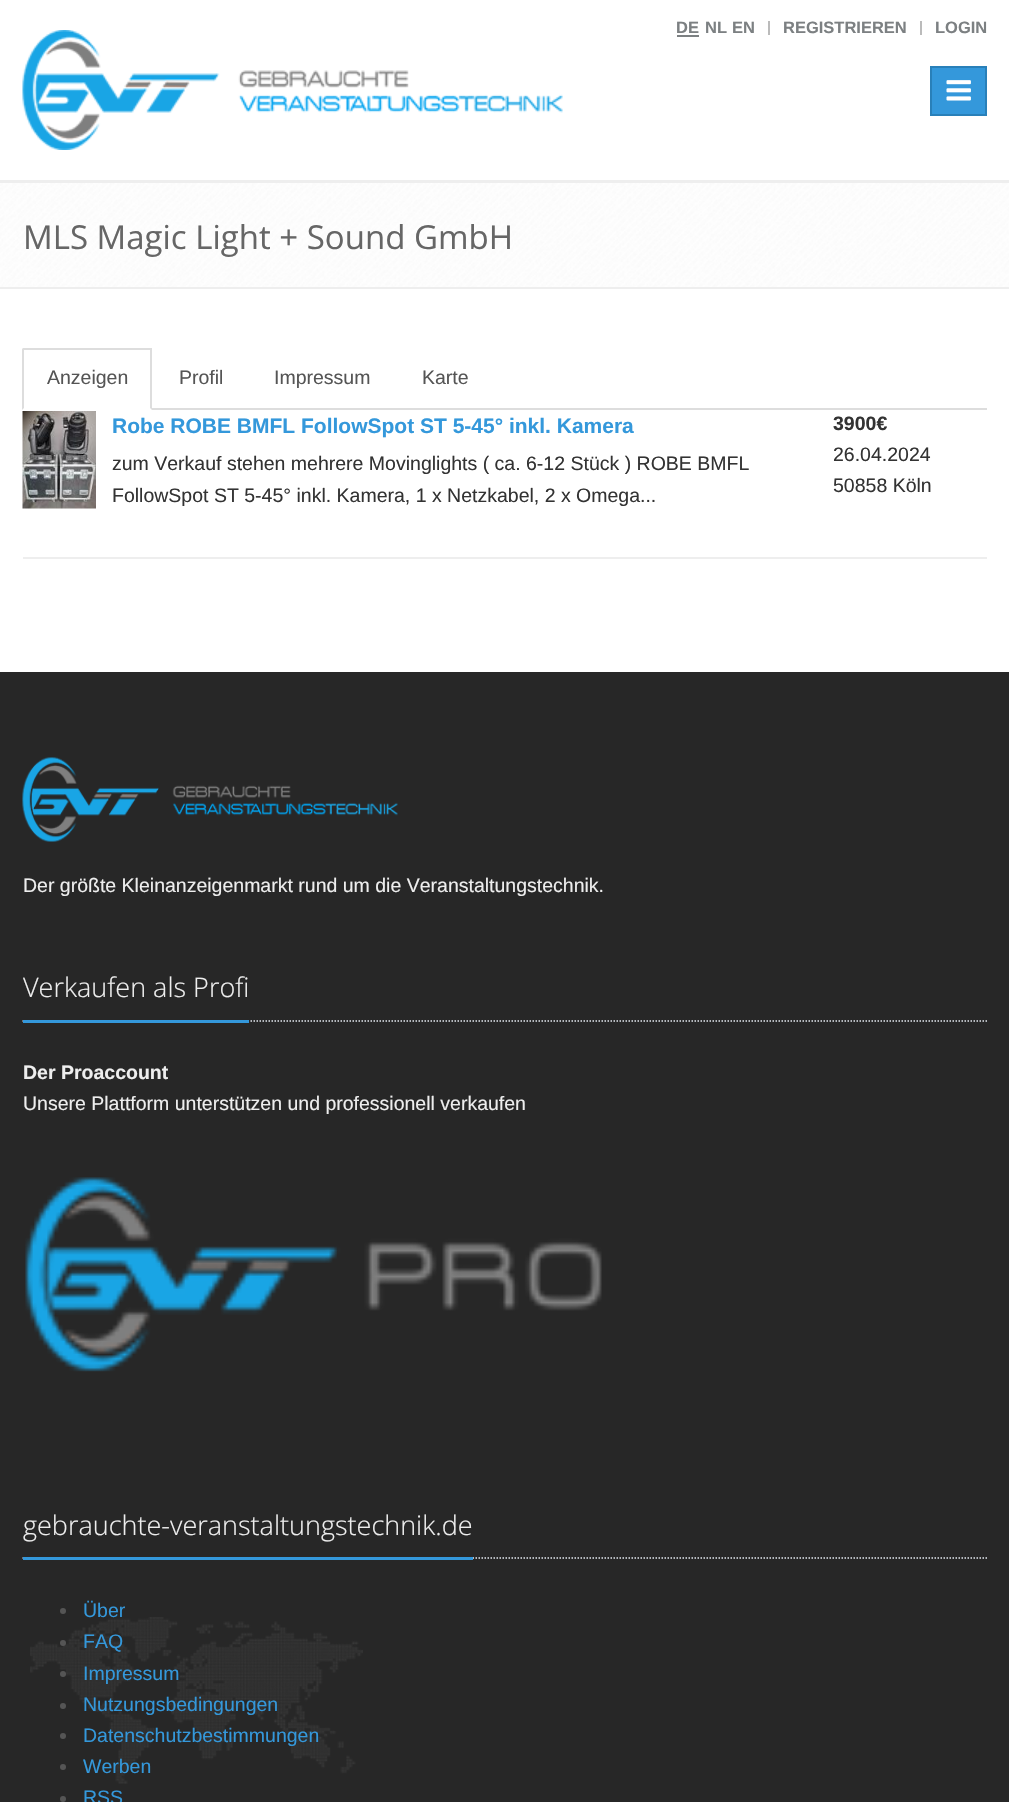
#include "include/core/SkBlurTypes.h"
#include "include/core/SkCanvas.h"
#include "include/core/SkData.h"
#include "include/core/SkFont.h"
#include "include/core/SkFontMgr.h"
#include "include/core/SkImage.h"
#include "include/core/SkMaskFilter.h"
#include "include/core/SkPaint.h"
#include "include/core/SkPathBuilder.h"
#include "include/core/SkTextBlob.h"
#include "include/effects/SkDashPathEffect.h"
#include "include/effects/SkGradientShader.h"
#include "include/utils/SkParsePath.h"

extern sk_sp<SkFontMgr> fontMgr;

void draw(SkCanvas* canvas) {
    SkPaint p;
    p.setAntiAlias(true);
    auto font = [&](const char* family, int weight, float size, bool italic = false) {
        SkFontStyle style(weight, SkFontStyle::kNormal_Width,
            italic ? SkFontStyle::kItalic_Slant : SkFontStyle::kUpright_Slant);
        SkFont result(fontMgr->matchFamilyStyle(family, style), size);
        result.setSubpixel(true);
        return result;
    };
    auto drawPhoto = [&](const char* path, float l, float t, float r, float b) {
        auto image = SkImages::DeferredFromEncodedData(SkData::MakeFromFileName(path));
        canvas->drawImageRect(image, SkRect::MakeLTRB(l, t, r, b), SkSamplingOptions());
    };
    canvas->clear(0xFFFFFFFF);
    p.setColor(0xFFEEEEEE);
    canvas->drawRect(SkRect::MakeLTRB(0, 180, 1009, 183), p);
    auto font1 = font("Liberation Sans", 700, 16.5f);
    p.setColor(0xFF7C8082);
    canvas->drawString("DE", 676, 33, font1, p);
    canvas->drawRect(SkRect::MakeLTRB(677, 35, 699, 37), p);
    canvas->drawString("NL", 705, 33, font1, p);
    canvas->drawString("EN", 732, 33, font1, p);
    p.setColor(0xFFBBBBBB);
    canvas->drawRect(SkRect::MakeLTRB(768, 21, 770, 35), p);
    p.setColor(0xFF7C8082);
    canvas->drawString("REGISTRIEREN", 783, 33, font1, p);
    p.setColor(0xFFBBBBBB);
    canvas->drawRect(SkRect::MakeLTRB(920, 21, 922, 35), p);
    p.setColor(0xFF7C8082);
    canvas->drawString("LOGIN", 935, 33, font1, p);
    drawPhoto("media/1.png", 22, 30, 563, 150);
    p.setColor(0xFF3498DB);
    canvas->drawRect(SkRect::MakeLTRB(931, 67, 986, 115), p);
    p.setStyle(SkPaint::kStroke_Style);
    p.setStrokeWidth(2);
    p.setColor(0xFF2980B9);
    canvas->drawRect(SkRect::MakeLTRB(931, 67, 986, 115), p);
    drawPhoto("media/2.png", 946, 80, 971, 101);
    drawPhoto("media/3.png", 0, 183, 1009, 287);
    p.setStyle(SkPaint::kFill_Style);
    p.setColor(0xFFEEEEEE);
    canvas->drawRect(SkRect::MakeLTRB(0, 287, 1009, 289), p);
    auto font2 = font("Open Sans", 400, 33);
    p.setColor(0xFF666666);
    canvas->drawString("MLS Magic Light + Sound GmbH", 23, 249, font2, p);
    p.setColor(0xFFDDDDDD);
    canvas->drawRect(SkRect::MakeLTRB(152, 408, 987, 410), p);
    canvas->drawRect(SkRect::MakeLTRB(23, 348, 152, 350), p);
    canvas->drawPath(SkPathBuilder().moveTo(152, 348).lineTo(152, 410).lineTo(150, 408).lineTo(150, 350).close().detach(), p);
    canvas->drawPath(SkPathBuilder().moveTo(22, 410).lineTo(22, 348).lineTo(24, 350).lineTo(24, 408).close().detach(), p);
    auto font3 = font("Liberation Sans", 400, 19.5f);
    p.setColor(0xFF555555);
    {
        const struct { const char* s; float x, y; } items[] = {
            {"Anzeigen", 47, 384},
            {"Profil", 179, 384},
            {"Impressum", 274, 384},
            {"Karte", 422, 384},
        };
        for (auto [s, x, y] : items) {
            canvas->drawString(s, x, y, font3, p);
        }
    }
    drawPhoto("media/4.png", 22, 411, 96, 509);
    auto font4 = font("Liberation Sans", 700, 21);
    p.setColor(0xFF3498DB);
    canvas->drawString("Robe ROBE BMFL FollowSpot ST 5-45° inkl. Kamera", 112, 433, font4, p);
    p.setColor(0xFF333333);
    canvas->drawString("zum Verkauf stehen mehrere Movinglights ( ca. 6-12 Stück ) ROBE BMFL", 112, 470, font3, p);
    canvas->drawString("FollowSpot ST 5-45° inkl. Kamera, 1 x Netzkabel, 2 x Omega...", 112, 502, font3, p);
    auto font5 = font("Liberation Sans", 700, 19.5f);
    canvas->drawString("3900€", 833, 430, font5, p);
    canvas->drawString("26.04.2024", 833, 461, font3, p);
    canvas->drawString("50858 Köln", 833, 492, font3, p);
    p.setColor(0xFFEEEEEE);
    canvas->drawRect(SkRect::MakeLTRB(23, 557, 987, 559), p);
    p.setColor(0xFF272727);
    canvas->drawRect(SkRect::MakeLTRB(0, 672, 1009, 1802), p);
    drawPhoto("media/5.png", 22, 757, 398, 842);
    p.setColor(0xFFEEEEEE);
    canvas->drawString("Der größte Kleinanzeigenmarkt rund um die Veranstaltungstechnik.", 23, 892, font3, p);
    p.setStyle(SkPaint::kStroke_Style);
    p.setStrokeWidth(1.5f);
    p.setColor(0xFFE4E9F0);
    p.setPathEffect(SkDashPathEffect::Make({{1.5f, 1.5f}}, 0));
    canvas->drawPath(SkPathBuilder().moveTo(22.5f, 1021).lineTo(987, 1021).detach(), p);
    p.setPathEffect(nullptr);
    p.setStyle(SkPaint::kFill_Style);
    p.setColor(0xFF3498DB);
    canvas->drawRect(SkRect::MakeLTRB(23, 1020, 249, 1023), p);
    auto font6 = font("Open Sans", 300, 27);
    p.setColor(0xFFEEEEEE);
    canvas->drawString("Verkaufen als Profi", 23, 997, font6, p);
    canvas->drawString("Der Proaccount", 23, 1079, font5, p);
    canvas->drawString("Unsere Plattform unterstützen und professionell verkaufen", 23, 1110, font3, p);
    drawPhoto("media/6.png", 25, 1177, 602, 1372);
    drawPhoto("media/7.png", 30, 1617, 363, 1784);
    p.setStyle(SkPaint::kStroke_Style);
    p.setColor(0xFFE4E9F0);
    p.setPathEffect(SkDashPathEffect::Make({{1.5f, 1.5f}}, 0));
    canvas->drawPath(SkPathBuilder().moveTo(22.5f, 1558).lineTo(987, 1558).detach(), p);
    p.setPathEffect(nullptr);
    p.setStyle(SkPaint::kFill_Style);
    p.setColor(0xFF3498DB);
    canvas->drawRect(SkRect::MakeLTRB(23, 1557, 473, 1560), p);
    p.setColor(0xFFEEEEEE);
    canvas->drawString("gebrauchte-veranstaltungstechnik.de", 23, 1535, font6, p);
    p.setColor(0xFF555555);
    canvas->drawCircle(63, 1611, 3, p);
    p.setColor(0xFF3498DB);
    canvas->drawString("Über", 83, 1617, font3, p);
    p.setColor(0xFF555555);
    canvas->drawCircle(63, 1643, 3, p);
    p.setColor(0xFF3498DB);
    canvas->drawString("FAQ", 83, 1648, font3, p);
    p.setColor(0xFF555555);
    canvas->drawCircle(63, 1674, 3, p);
    p.setColor(0xFF3498DB);
    canvas->drawString("Impressum", 83, 1680, font3, p);
    p.setColor(0xFF555555);
    canvas->drawCircle(63, 1706, 3, p);
    p.setColor(0xFF3498DB);
    canvas->drawString("Nutzungsbedingungen", 83, 1711, font3, p);
    p.setColor(0xFF555555);
    canvas->drawCircle(63, 1736, 3, p);
    p.setColor(0xFF3498DB);
    canvas->drawString("Datenschutzbestimmungen", 83, 1742, font3, p);
    p.setColor(0xFF555555);
    canvas->drawCircle(63, 1767, 3, p);
    p.setColor(0xFF3498DB);
    canvas->drawString("Werben", 83, 1773, font3, p);
    p.setColor(0xFF555555);
    canvas->drawCircle(63, 1799, 3, p);
    p.setColor(0xFF3498DB);
    canvas->drawString("RSS", 83, 1804, font3, p);
}
